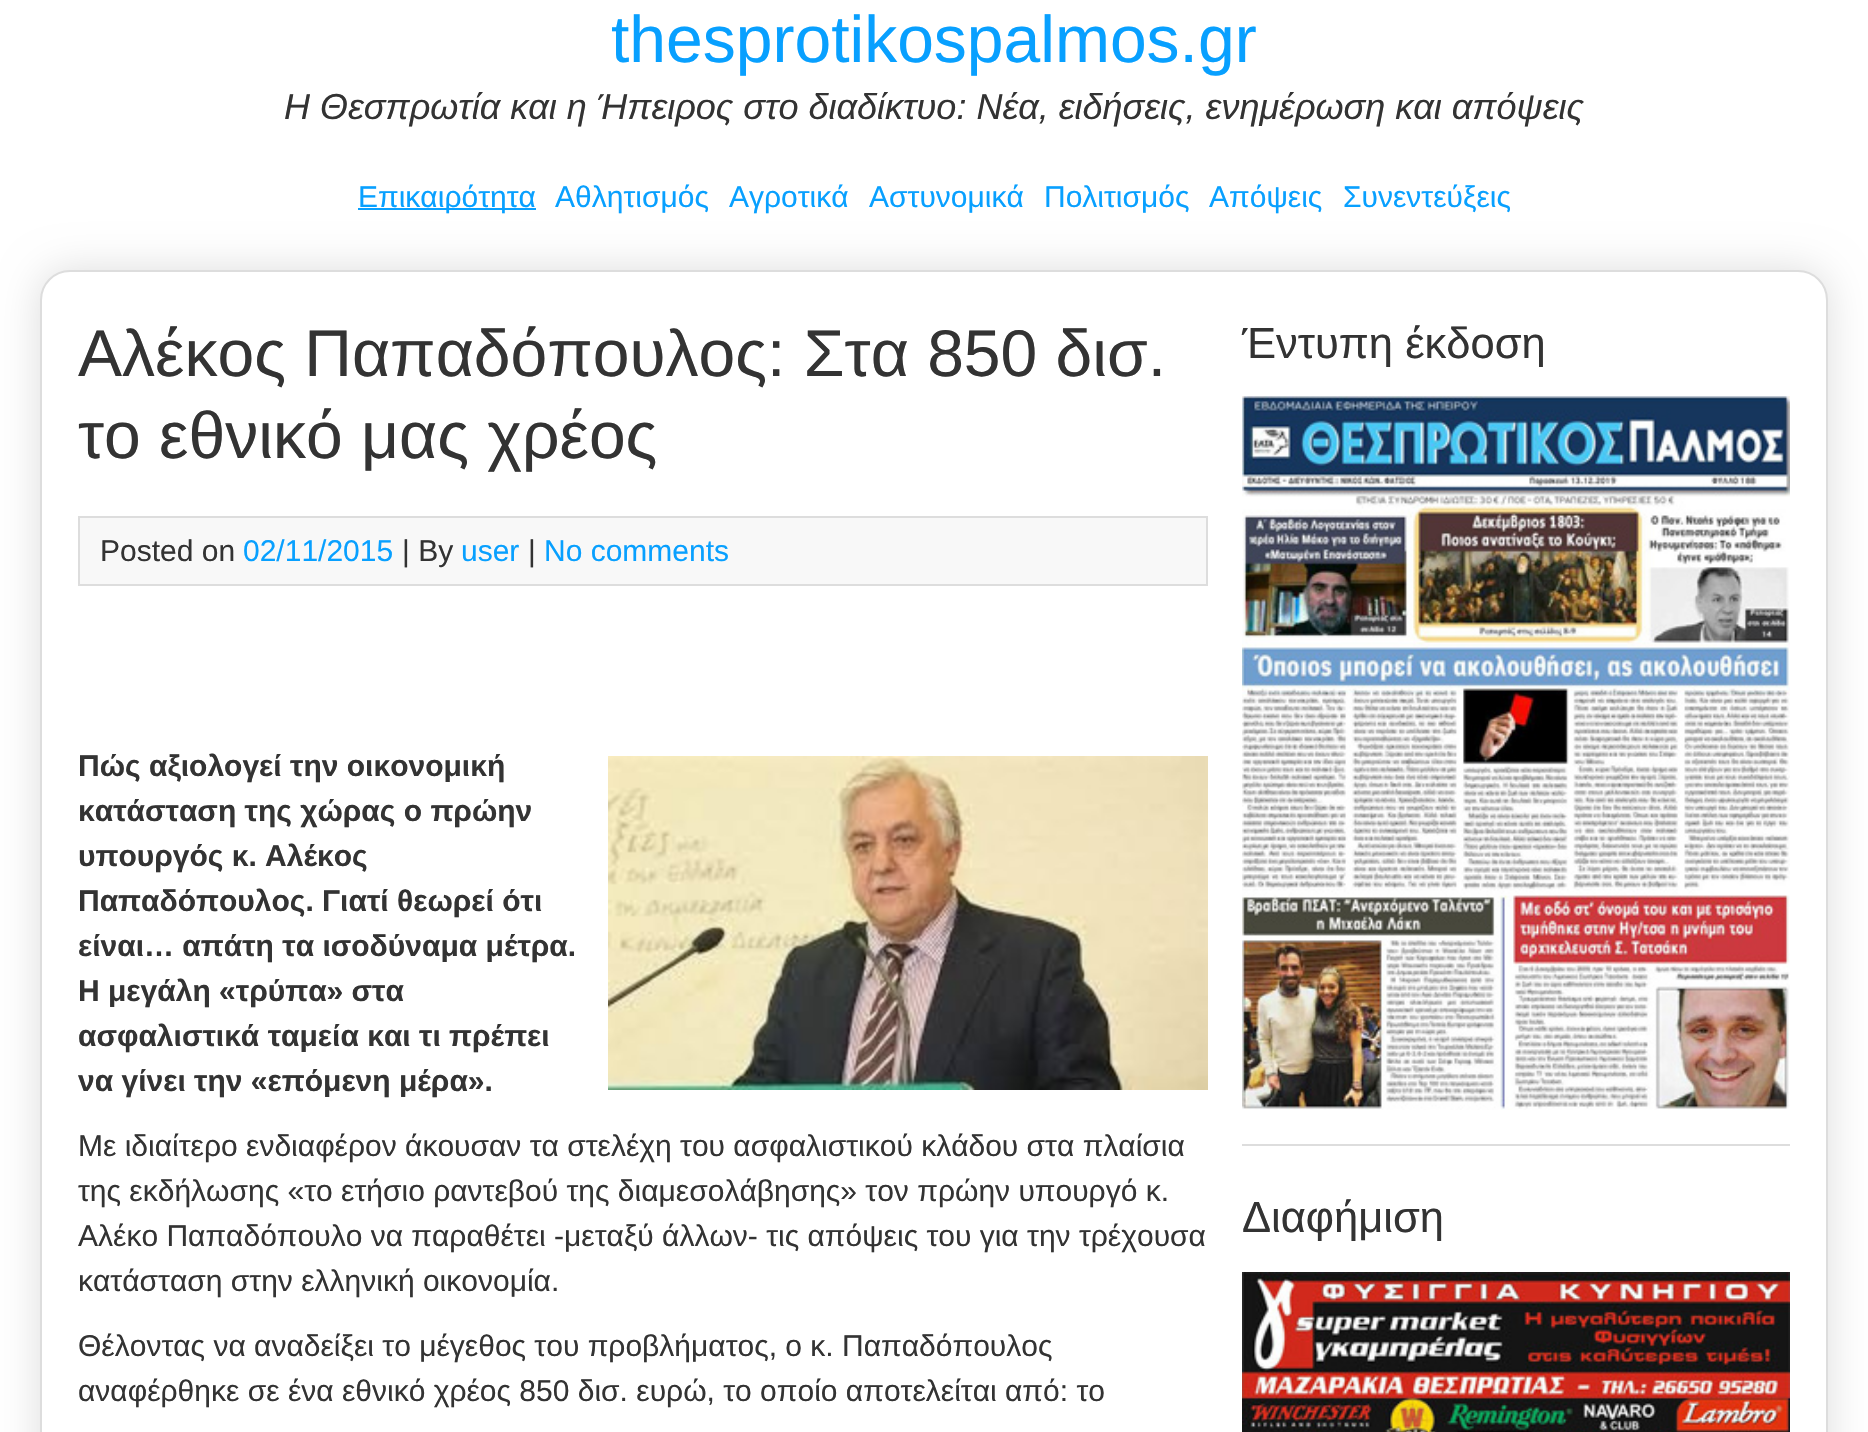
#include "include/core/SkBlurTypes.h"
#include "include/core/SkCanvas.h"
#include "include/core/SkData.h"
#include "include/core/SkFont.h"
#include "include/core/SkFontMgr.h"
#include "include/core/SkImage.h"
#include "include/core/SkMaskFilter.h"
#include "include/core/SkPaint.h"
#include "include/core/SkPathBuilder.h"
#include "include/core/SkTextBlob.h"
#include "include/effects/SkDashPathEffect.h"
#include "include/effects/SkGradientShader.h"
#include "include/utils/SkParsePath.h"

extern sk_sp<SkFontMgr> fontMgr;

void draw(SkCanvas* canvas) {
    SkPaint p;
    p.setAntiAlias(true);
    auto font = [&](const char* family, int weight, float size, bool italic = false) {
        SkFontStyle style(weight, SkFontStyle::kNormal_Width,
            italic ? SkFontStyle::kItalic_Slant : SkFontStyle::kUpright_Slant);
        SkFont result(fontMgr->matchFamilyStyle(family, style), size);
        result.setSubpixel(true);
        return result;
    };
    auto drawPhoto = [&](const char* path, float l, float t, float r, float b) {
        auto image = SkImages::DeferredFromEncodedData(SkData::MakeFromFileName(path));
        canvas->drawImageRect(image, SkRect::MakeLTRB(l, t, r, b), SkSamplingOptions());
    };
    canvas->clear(0xFFFFFFFF);
    auto font1 = font("Liberation Sans", 400, 66);
    p.setColor(0xFF08A0FF);
    canvas->drawString("thesprotikospalmos.gr", 611, 62, font1, p);
    auto font2 = font("Liberation Sans", 400, 36, true);
    p.setColor(0xFF333333);
    canvas->drawString("Η Θεσπρωτία και η Ήπειρος στο διαδίκτυο: Νέα, ειδήσεις, ενημέρωση και απόψεις", 284, 119, font2, p);
    p.setColor(0xFFDDDDDD);
    p.setMaskFilter(SkMaskFilter::MakeBlur(kNormal_SkBlurStyle, 20));
    canvas->drawRoundRect(SkRect::MakeLTRB(40, 270, 1828, 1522), 30, 30, p);
    p.setMaskFilter(nullptr);
    p.setColor(0xFF08A0FF);
    canvas->drawRect(SkRect::MakeLTRB(358, 208, 536, 210), p);
    auto font3 = font("Liberation Sans", 400, 30);
    {
        const struct { const char* s; float x, y; } items[] = {
            {"Επικαιρότητα", 358, 207},
            {"Αθλητισμός", 555, 207},
            {"Αγροτικά", 729, 207},
            {"Αστυνομικά", 869, 207},
            {"Πολιτισμός", 1044, 207},
            {"Απόψεις", 1209, 207},
            {"Συνεντεύξεις", 1343, 207},
        };
        for (auto [s, x, y] : items) {
            canvas->drawString(s, x, y, font3, p);
        }
    }
    p.setColor(0xFFFFFFFF);
    canvas->drawRoundRect(SkRect::MakeLTRB(41, 271, 1827, 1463), 29, 29, p);
    p.setStyle(SkPaint::kStroke_Style);
    p.setStrokeWidth(2);
    p.setColor(0xFFDDDDDD);
    canvas->drawRoundRect(SkRect::MakeLTRB(41, 271, 1827, 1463), 29, 29, p);
    p.setStyle(SkPaint::kFill_Style);
    p.setColor(0xFF333333);
    canvas->drawString("Αλέκος Παπαδόπουλος: Στα 850 δισ.", 78, 376, font1, p);
    canvas->drawString("το εθνικό μας χρέος", 78, 458, font1, p);
    p.setColor(0xFFF8F8F8);
    canvas->drawRect(SkRect::MakeLTRB(79, 517, 1207, 585), p);
    p.setStyle(SkPaint::kStroke_Style);
    p.setColor(0xFFDDDDDD);
    canvas->drawRect(SkRect::MakeLTRB(79, 517, 1207, 585), p);
    p.setStyle(SkPaint::kFill_Style);
    p.setColor(0xFF333333);
    canvas->drawString("Posted on", 100, 561, font3, p);
    p.setColor(0xFF08A0FF);
    canvas->drawString("02/11/2015", 243, 561, font3, p);
    p.setColor(0xFF333333);
    canvas->drawString("| By", 402, 561, font3, p);
    p.setColor(0xFF08A0FF);
    canvas->drawString("user", 461, 561, font3, p);
    p.setColor(0xFF333333);
    canvas->drawString("|", 528, 561, font3, p);
    p.setColor(0xFF08A0FF);
    canvas->drawString("No comments", 544, 561, font3, p);
    auto font4 = font("Liberation Sans", 700, 30);
    p.setColor(0xFF333333);
    canvas->drawString("Πώς αξιολογεί την οικονομική", 78, 776, font4, p);
    drawPhoto("media/1.png", 608, 756, 1208, 1090);
    {
        const struct { const char* s; float x, y; } items[] = {
            {"κατάσταση της χώρας ο πρώην", 78, 821},
            {"υπουργός κ. Αλέκος", 78, 866},
            {"Παπαδόπουλος. Γιατί θεωρεί ότι", 78, 911},
            {"είναι… απάτη τα ισοδύναμα μέτρα.", 78, 956},
            {"Η μεγάλη «τρύπα» στα", 78, 1001},
            {"ασφαλιστικά ταμεία και τι πρέπει", 78, 1046},
            {"να γίνει την «επόμενη μέρα».", 78, 1091},
        };
        for (auto [s, x, y] : items) {
            canvas->drawString(s, x, y, font4, p);
        }
    }
    {
        const struct { const char* s; float x, y; } items[] = {
            {"Με ιδιαίτερο ενδιαφέρον άκουσαν τα στελέχη του ασφαλιστικού κλάδου στα πλαίσια", 78, 1156},
            {"της εκδήλωσης «το ετήσιο ραντεβού της διαμεσολάβησης» τον πρώην υπουργό κ.", 78, 1201},
            {"Αλέκο Παπαδόπουλο να παραθέτει -μεταξύ άλλων- τις απόψεις του για την τρέχουσα", 78, 1246},
            {"κατάσταση στην ελληνική οικονομία.", 78, 1291},
            {"Θέλοντας να αναδείξει το μέγεθος του προβλήματος, ο κ. Παπαδόπουλος", 78, 1356},
            {"αναφέρθηκε σε ένα εθνικό χρέος 850 δισ. ευρώ, το οποίο αποτελείται από: το", 78, 1401},
        };
        for (auto [s, x, y] : items) {
            canvas->drawString(s, x, y, font3, p);
        }
    }
    p.setColor(0xFFDDDDDD);
    canvas->drawRect(SkRect::MakeLTRB(1242, 1144, 1790, 1146), p);
    auto font5 = font("Liberation Sans", 400, 43.5f);
    p.setColor(0xFF333333);
    canvas->drawString("Έντυπη έκδοση", 1242, 358, font5, p);
    drawPhoto("media/2.png", 1242, 396, 1790, 1110);
    canvas->drawString("Διαφήμιση", 1242, 1232, font5, p);
    drawPhoto("media/3.png", 1242, 1272, 1790, 1432);
}
